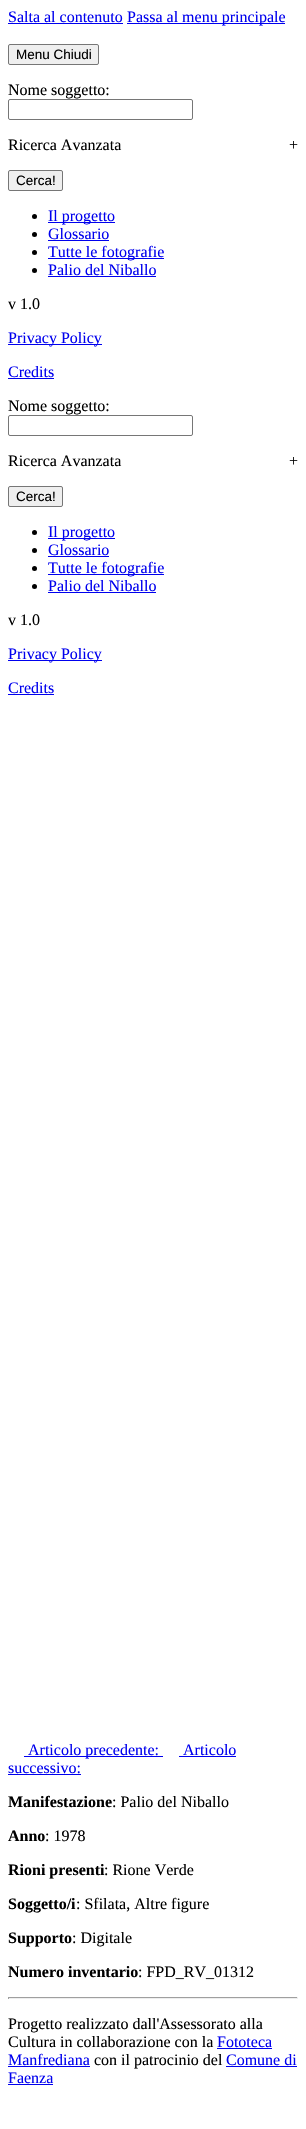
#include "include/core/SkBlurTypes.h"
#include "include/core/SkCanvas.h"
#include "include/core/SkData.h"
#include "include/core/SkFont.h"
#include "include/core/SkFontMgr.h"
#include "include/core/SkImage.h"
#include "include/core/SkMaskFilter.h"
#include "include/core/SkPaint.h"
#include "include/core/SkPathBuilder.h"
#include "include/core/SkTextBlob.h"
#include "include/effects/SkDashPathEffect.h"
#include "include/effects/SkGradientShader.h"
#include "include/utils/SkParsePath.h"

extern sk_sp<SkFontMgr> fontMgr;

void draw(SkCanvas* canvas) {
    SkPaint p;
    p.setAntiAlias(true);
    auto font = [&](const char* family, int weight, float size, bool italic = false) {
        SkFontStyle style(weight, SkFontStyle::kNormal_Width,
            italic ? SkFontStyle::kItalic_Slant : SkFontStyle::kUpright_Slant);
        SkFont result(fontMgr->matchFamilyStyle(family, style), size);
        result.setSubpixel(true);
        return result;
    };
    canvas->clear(0xFFFFFFFF);
    auto font1 = font("Liberation Serif", 400, 16);
    p.setColor(0xFF0000EE);
    canvas->drawString("Salta al contenuto", 8, 22, font1, p);
    canvas->drawRect(SkRect::MakeLTRB(8, 23, 123, 24), p);
    canvas->drawRect(SkRect::MakeLTRB(127, 23, 285, 24), p);
    canvas->drawString("Passa al menu principale", 127, 22, font1, p);
    p.setColor(0xFFEFEFEF);
    canvas->drawRoundRect(SkRect::MakeLTRB(8.5f, 44.5f, 98.5f, 64.5f), 1.5f, 1.5f, p);
    p.setStyle(SkPaint::kStroke_Style);
    p.setStrokeWidth(1);
    p.setColor(0xFF767676);
    canvas->drawRoundRect(SkRect::MakeLTRB(8.5f, 44.5f, 98.5f, 64.5f), 1.5f, 1.5f, p);
    auto font2 = font("Liberation Sans", 400, 13.5f);
    p.setStyle(SkPaint::kFill_Style);
    p.setColor(0xFF000000);
    canvas->drawString("Menu Chiudi", 16, 59, font2, p);
    canvas->drawString("Nome soggetto:", 8, 95, font1, p);
    p.setStyle(SkPaint::kStroke_Style);
    p.setColor(0xFF767676);
    canvas->drawRoundRect(SkRect::MakeLTRB(8.5f, 99.5f, 192.5f, 119.5f), 1.5f, 1.5f, p);
    p.setStyle(SkPaint::kFill_Style);
    p.setColor(0xFF000000);
    canvas->drawString("Ricerca Avanzata", 8, 150, font1, p);
    canvas->drawString("+", 289, 150, font1, p);
    p.setColor(0xFFEFEFEF);
    canvas->drawRoundRect(SkRect::MakeLTRB(8.5f, 170.5f, 62.5f, 190.5f), 1.5f, 1.5f, p);
    p.setStyle(SkPaint::kStroke_Style);
    p.setColor(0xFF767676);
    canvas->drawRoundRect(SkRect::MakeLTRB(8.5f, 170.5f, 62.5f, 190.5f), 1.5f, 1.5f, p);
    p.setStyle(SkPaint::kFill_Style);
    p.setColor(0xFF000000);
    canvas->drawString("Cerca!", 16, 185, font2, p);
    canvas->drawCircle(34.5f, 216.5f, 2.5f, p);
    p.setColor(0xFF0000EE);
    canvas->drawRect(SkRect::MakeLTRB(48, 222, 115, 223), p);
    canvas->drawString("Il progetto", 48, 221, font1, p);
    p.setColor(0xFF000000);
    canvas->drawCircle(34.5f, 234.5f, 2.5f, p);
    p.setColor(0xFF0000EE);
    canvas->drawString("Glossario", 48, 239, font1, p);
    canvas->drawRect(SkRect::MakeLTRB(48, 240, 109, 241), p);
    p.setColor(0xFF000000);
    canvas->drawCircle(34.5f, 252.5f, 2.5f, p);
    p.setColor(0xFF0000EE);
    canvas->drawRect(SkRect::MakeLTRB(48, 258, 164, 259), p);
    canvas->drawString("Tutte le fotografie", 48, 257, font1, p);
    p.setColor(0xFF000000);
    canvas->drawCircle(34.5f, 270.5f, 2.5f, p);
    p.setColor(0xFF0000EE);
    canvas->drawString("Palio del Niballo", 48, 275, font1, p);
    canvas->drawRect(SkRect::MakeLTRB(48, 276, 156, 277), p);
    p.setColor(0xFF000000);
    canvas->drawString("v 1.0", 8, 309, font1, p);
    p.setColor(0xFF0000EE);
    canvas->drawRect(SkRect::MakeLTRB(8, 344, 102, 345), p);
    canvas->drawString("Privacy Policy", 8, 343, font1, p);
    canvas->drawString("Credits", 8, 377, font1, p);
    canvas->drawRect(SkRect::MakeLTRB(8, 378, 54, 379), p);
    p.setColor(0xFF000000);
    canvas->drawString("Nome soggetto:", 8, 411, font1, p);
    p.setStyle(SkPaint::kStroke_Style);
    p.setColor(0xFF767676);
    canvas->drawRoundRect(SkRect::MakeLTRB(8.5f, 415.5f, 192.5f, 435.5f), 1.5f, 1.5f, p);
    p.setStyle(SkPaint::kFill_Style);
    p.setColor(0xFF000000);
    canvas->drawString("Ricerca Avanzata", 8, 466, font1, p);
    canvas->drawString("+", 289, 466, font1, p);
    p.setColor(0xFFEFEFEF);
    canvas->drawRoundRect(SkRect::MakeLTRB(8.5f, 486.5f, 62.5f, 506.5f), 1.5f, 1.5f, p);
    p.setStyle(SkPaint::kStroke_Style);
    p.setColor(0xFF767676);
    canvas->drawRoundRect(SkRect::MakeLTRB(8.5f, 486.5f, 62.5f, 506.5f), 1.5f, 1.5f, p);
    p.setStyle(SkPaint::kFill_Style);
    p.setColor(0xFF000000);
    canvas->drawString("Cerca!", 16, 501, font2, p);
    canvas->drawCircle(34.5f, 532.5f, 2.5f, p);
    p.setColor(0xFF0000EE);
    canvas->drawRect(SkRect::MakeLTRB(48, 538, 115, 539), p);
    canvas->drawString("Il progetto", 48, 537, font1, p);
    p.setColor(0xFF000000);
    canvas->drawCircle(34.5f, 550.5f, 2.5f, p);
    p.setColor(0xFF0000EE);
    canvas->drawString("Glossario", 48, 555, font1, p);
    canvas->drawRect(SkRect::MakeLTRB(48, 556, 109, 557), p);
    p.setColor(0xFF000000);
    canvas->drawCircle(34.5f, 568.5f, 2.5f, p);
    p.setColor(0xFF0000EE);
    canvas->drawRect(SkRect::MakeLTRB(48, 574, 164, 575), p);
    canvas->drawString("Tutte le fotografie", 48, 573, font1, p);
    p.setColor(0xFF000000);
    canvas->drawCircle(34.5f, 586.5f, 2.5f, p);
    p.setColor(0xFF0000EE);
    canvas->drawString("Palio del Niballo", 48, 591, font1, p);
    canvas->drawRect(SkRect::MakeLTRB(48, 592, 156, 593), p);
    p.setColor(0xFF000000);
    canvas->drawString("v 1.0", 8, 625, font1, p);
    p.setColor(0xFF0000EE);
    canvas->drawRect(SkRect::MakeLTRB(8, 660, 102, 661), p);
    canvas->drawString("Privacy Policy", 8, 659, font1, p);
    canvas->drawString("Credits", 8, 693, font1, p);
    canvas->drawRect(SkRect::MakeLTRB(8, 694, 54, 695), p);
    canvas->drawRect(SkRect::MakeLTRB(24, 1756, 163, 1757), p);
    canvas->drawString("Articolo precedente:", 28, 1755, font1, p);
    canvas->drawString("Articolo", 183, 1755, font1, p);
    canvas->drawRect(SkRect::MakeLTRB(179, 1756, 236, 1757), p);
    canvas->drawString("successivo:", 8, 1773, font1, p);
    canvas->drawRect(SkRect::MakeLTRB(8, 1774, 81, 1775), p);
    auto font3 = font("Liberation Serif", 700, 16);
    p.setColor(0xFF000000);
    canvas->drawString("Manifestazione", 8, 1807, font3, p);
    canvas->drawString(": Palio del Niballo", 112, 1807, font1, p);
    canvas->drawString("Anno", 8, 1841, font3, p);
    canvas->drawString(": 1978", 45, 1841, font1, p);
    canvas->drawString("Rioni presenti", 8, 1875, font3, p);
    canvas->drawString(": Rione Verde", 104, 1875, font1, p);
    canvas->drawString("Soggetto/i", 8, 1909, font3, p);
    canvas->drawString(": Sfilata, Altre figure", 76, 1909, font1, p);
    canvas->drawString("Supporto", 8, 1943, font3, p);
    canvas->drawString(": Digitale", 72, 1943, font1, p);
    canvas->drawString("Numero inventario", 8, 1977, font3, p);
    canvas->drawString(": FPD_RV_01312", 138, 1977, font1, p);
    {
        const struct { float l, t, r, b; SkColor color; } items[] = {
            {8, 1997, 298, 1998, 0xFF9F9F9F},
            {297, 1997, 298, 1999, 0xFFEEEEEE},
            {8, 1998, 298, 1999, 0xFFEEEEEE},
            {8, 1997, 9, 1999, 0xFF9F9F9F},
        };
        for (auto [l, t, r, b, color] : items) {
            p.setColor(color);
            canvas->drawRect(SkRect::MakeLTRB(l, t, r, b), p);
        }
    }
    p.setColor(0xFF000000);
    canvas->drawString("Progetto realizzato dall'Assessorato alla", 8, 2029, font1, p);
    canvas->drawString("Cultura in collaborazione con la", 8, 2047, font1, p);
    p.setColor(0xFF0000EE);
    canvas->drawString("Fototeca", 217, 2047, font1, p);
    canvas->drawRect(SkRect::MakeLTRB(217, 2048, 272, 2049), p);
    canvas->drawString("Manfrediana", 8, 2065, font1, p);
    canvas->drawRect(SkRect::MakeLTRB(8, 2066, 90, 2067), p);
    p.setColor(0xFF000000);
    canvas->drawString("con il patrocinio del", 94, 2065, font1, p);
    p.setColor(0xFF0000EE);
    canvas->drawString("Comune di", 226, 2065, font1, p);
    canvas->drawRect(SkRect::MakeLTRB(226, 2066, 297, 2067), p);
    canvas->drawString("Faenza", 8, 2083, font1, p);
    canvas->drawRect(SkRect::MakeLTRB(8, 2084, 53, 2085), p);
}
